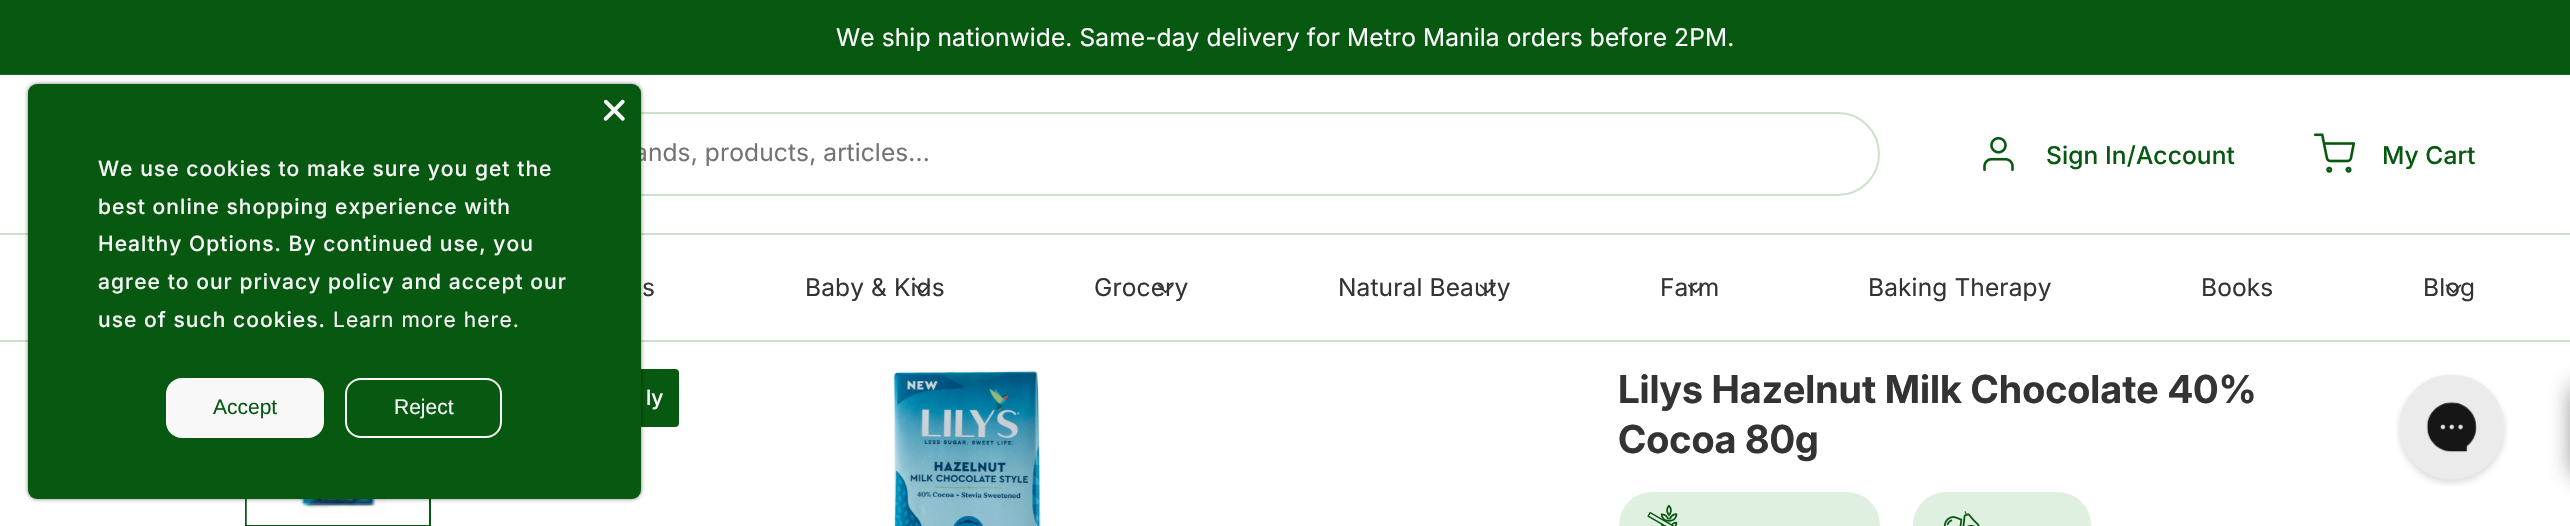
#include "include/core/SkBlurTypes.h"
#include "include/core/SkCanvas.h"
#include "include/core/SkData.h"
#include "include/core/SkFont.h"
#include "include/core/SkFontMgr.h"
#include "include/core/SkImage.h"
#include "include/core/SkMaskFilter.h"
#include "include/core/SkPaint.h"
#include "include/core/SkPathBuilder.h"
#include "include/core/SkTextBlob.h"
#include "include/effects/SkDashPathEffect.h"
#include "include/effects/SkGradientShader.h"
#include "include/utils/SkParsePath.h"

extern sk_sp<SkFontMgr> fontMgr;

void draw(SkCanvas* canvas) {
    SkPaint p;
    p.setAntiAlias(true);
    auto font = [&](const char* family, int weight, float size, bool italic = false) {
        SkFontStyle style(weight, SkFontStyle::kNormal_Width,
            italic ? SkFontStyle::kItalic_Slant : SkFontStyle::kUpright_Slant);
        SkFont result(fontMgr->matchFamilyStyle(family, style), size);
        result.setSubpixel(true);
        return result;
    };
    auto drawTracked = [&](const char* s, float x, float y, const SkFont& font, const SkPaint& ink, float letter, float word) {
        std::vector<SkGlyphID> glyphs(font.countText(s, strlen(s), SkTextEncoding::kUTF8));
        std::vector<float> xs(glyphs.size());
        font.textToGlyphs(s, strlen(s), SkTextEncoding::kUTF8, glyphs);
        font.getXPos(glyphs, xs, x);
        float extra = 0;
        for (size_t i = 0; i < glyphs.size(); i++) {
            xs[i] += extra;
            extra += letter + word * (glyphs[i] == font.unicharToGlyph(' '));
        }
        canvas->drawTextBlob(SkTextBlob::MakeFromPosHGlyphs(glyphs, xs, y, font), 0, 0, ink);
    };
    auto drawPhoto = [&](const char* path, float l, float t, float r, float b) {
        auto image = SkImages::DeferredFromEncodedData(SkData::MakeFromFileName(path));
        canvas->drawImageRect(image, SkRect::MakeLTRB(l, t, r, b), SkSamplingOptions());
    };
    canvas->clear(0xFFFFFFFF);
    p.setColor(0xFF075811);
    canvas->drawRect(SkRect::MakeLTRB(0, 0, 2570, 74), p);
    p.setColor(0xFF1B6524);
    canvas->drawRect(SkRect::MakeLTRB(0, 74, 2570, 75), p);
    auto font1 = font("Inter", 400, 24.5f);
    p.setColor(0xFFFFFFFF);
    drawTracked("We ship nationwide. Same-day delivery for Metro Manila orders before 2PM.", 836, 46, font1, p, 0.12f, 0);
    p.setStyle(SkPaint::kStroke_Style);
    p.setStrokeWidth(2);
    p.setColor(0xFF075811);
    canvas->drawRect(SkRect::MakeLTRB(246, 342, 430, 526), p);
    p.setStyle(SkPaint::kFill_Style);
    p.setColor(0xFFCFDFCD);
    canvas->drawRect(SkRect::MakeLTRB(0, 340, 2570, 342), p);
    p.setStyle(SkPaint::kStroke_Style);
    canvas->drawRoundRect(SkRect::MakeLTRB(435, 113, 1879, 195), 41, 41, p);
    p.setStyle(SkPaint::kFill_Style);
    canvas->drawRect(SkRect::MakeLTRB(0, 233, 2570, 235), p);
    drawPhoto("media/9.png", 246, 499, 386, 525);
    p.setColor(0xFF075811);
    canvas->drawRoundRect(SkRect::MakeLTRB(467, 369, 679, 427), 4, 4, p);
    p.setColor(0x80000000);
    p.setMaskFilter(SkMaskFilter::MakeBlur(kNormal_SkBlurStyle, 2));
    canvas->drawRoundRect(SkRect::MakeLTRB(28, 84, 641, 499), 9, 9, p);
    p.setMaskFilter(nullptr);
    p.setColor(0xFF737373);
    drawTracked("ands, products, articles...", 634, 161, font1, p, 0.12f, 0);
    p.setColor(0xFF075811);
    canvas->drawRoundRect(SkRect::MakeLTRB(28, 84, 641, 499), 9, 9, p);
    drawPhoto("media/1.png", 603, 99, 625, 121);
    auto font2 = font("Inter", 500, 21);
    p.setColor(0xFFF8F8F8);
    {
        const struct { const char* s; float x, y; } items[] = {
            {"We use cookies to make sure you get the", 98, 176},
            {"best online shopping experience with", 98, 214},
            {"Healthy Options. By continued use, you", 98, 251},
            {"agree to our privacy policy and accept our", 98, 289},
            {"use of such cookies.", 98, 327},
        };
        for (auto [s, x, y] : items) {
            drawTracked(s, x, y, font2, p, 1.05f, 0);
        }
    }
    auto font3 = font("Inter", 400, 21);
    drawTracked("Learn more here.", 333, 327, font3, p, 1.05f, 0);
    canvas->drawRoundRect(SkRect::MakeLTRB(166, 378, 324, 438), 16, 16, p);
    auto font4 = font("Liberation Sans", 400, 21);
    p.setColor(0xFF075811);
    canvas->drawString("Accept", 213, 414, font4, p);
    p.setStyle(SkPaint::kStroke_Style);
    p.setColor(0xFFF8F8F8);
    canvas->drawRoundRect(SkRect::MakeLTRB(346, 379, 501, 437), 15, 15, p);
    p.setStyle(SkPaint::kFill_Style);
    canvas->drawString("Reject", 394, 414, font4, p);
    drawPhoto("media/2.png", 1983, 136, 2014, 171);
    auto font5 = font("Inter", 500, 24.5f);
    p.setColor(0xFF075811);
    drawTracked("Sign In/Account", 2046, 164, font5, p, 0.12f, 0);
    drawPhoto("media/3.png", 2314, 133, 2355, 173);
    drawTracked("My Cart", 2382, 164, font5, p, 0.12f, 0);
    p.setColor(0xFF333333);
    drawTracked("s", 642, 296, font1, p, 0.12f, 0);
    drawTracked("Baby & Kids", 805, 296, font1, p, 0.12f, 0);
    drawPhoto("media/4.png", 914, 284, 931, 294);
    drawTracked("Grocery", 1094, 296, font1, p, 0.12f, 0);
    drawPhoto("media/5.png", 1157, 284, 1174, 294);
    drawTracked("Natural Beauty", 1338, 296, font1, p, 0.12f, 0);
    drawPhoto("media/6.png", 1479, 284, 1496, 294);
    drawTracked("Farm", 1660, 296, font1, p, 0.12f, 0);
    drawPhoto("media/7.png", 1687, 284, 1704, 294);
    {
        const struct { const char* s; float x, y; } items[] = {
            {"Baking Therapy", 1868, 296},
            {"Books", 2201, 296},
            {"Blog", 2423, 296},
        };
        for (auto [s, x, y] : items) {
            drawTracked(s, x, y, font1, p, 0.12f, 0);
        }
    }
    drawPhoto("media/8.png", 2445, 284, 2462, 294);
    p.setColor(0x80757575);
    p.setMaskFilter(SkMaskFilter::MakeBlur(kNormal_SkBlurStyle, 12));
    canvas->drawRect(SkRect::MakeLTRB(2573, 387, 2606, 474), p);
    p.setMaskFilter(nullptr);
    p.setColor(0xFFFFFFFF);
    canvas->drawString("ly", 646, 405, font2, p);
    drawPhoto("media/10.png", 892, 370, 1041, 526);
    auto font6 = font("Inter", 700, 38.5f);
    p.setColor(0xFF333333);
    canvas->drawString("Lilys Hazelnut Milk Chocolate 40%", 1618, 403, font6, p);
    canvas->drawString("Cocoa 80g", 1618, 453, font6, p);
    p.setColor(0xFFE0F0E0);
    canvas->drawRoundRect(SkRect::MakeLTRB(1619, 492, 1880, 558), 33, 33, p);
    drawPhoto("media/11.png", 1647, 504, 1678, 526);
    canvas->drawRoundRect(SkRect::MakeLTRB(1913, 492, 2091, 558), 33, 33, p);
    drawPhoto("media/12.png", 1943, 511, 1980, 526);
    drawPhoto("media/13.png", 2396, 374, 2508, 486);
    p.setColor(0x80757575);
    p.setMaskFilter(SkMaskFilter::MakeBlur(kNormal_SkBlurStyle, 12));
    canvas->drawRect(SkRect::MakeLTRB(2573, 387, 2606, 474), p);
    p.setMaskFilter(nullptr);
}
